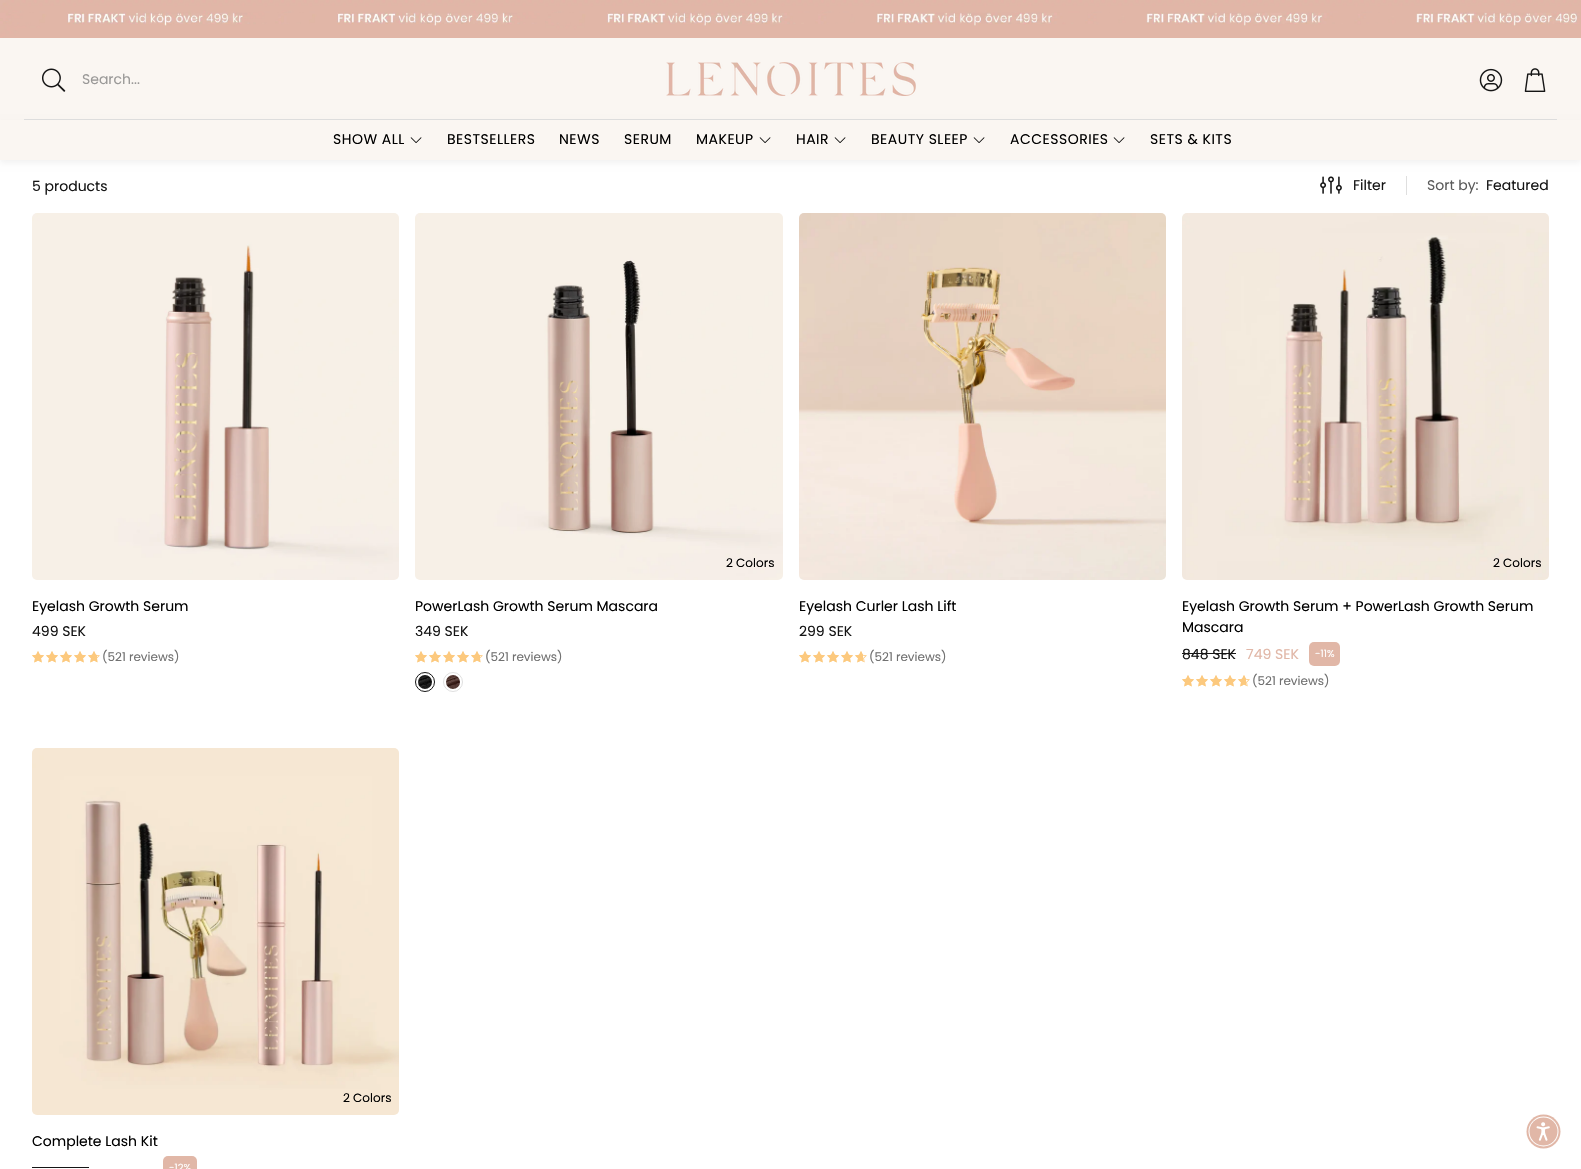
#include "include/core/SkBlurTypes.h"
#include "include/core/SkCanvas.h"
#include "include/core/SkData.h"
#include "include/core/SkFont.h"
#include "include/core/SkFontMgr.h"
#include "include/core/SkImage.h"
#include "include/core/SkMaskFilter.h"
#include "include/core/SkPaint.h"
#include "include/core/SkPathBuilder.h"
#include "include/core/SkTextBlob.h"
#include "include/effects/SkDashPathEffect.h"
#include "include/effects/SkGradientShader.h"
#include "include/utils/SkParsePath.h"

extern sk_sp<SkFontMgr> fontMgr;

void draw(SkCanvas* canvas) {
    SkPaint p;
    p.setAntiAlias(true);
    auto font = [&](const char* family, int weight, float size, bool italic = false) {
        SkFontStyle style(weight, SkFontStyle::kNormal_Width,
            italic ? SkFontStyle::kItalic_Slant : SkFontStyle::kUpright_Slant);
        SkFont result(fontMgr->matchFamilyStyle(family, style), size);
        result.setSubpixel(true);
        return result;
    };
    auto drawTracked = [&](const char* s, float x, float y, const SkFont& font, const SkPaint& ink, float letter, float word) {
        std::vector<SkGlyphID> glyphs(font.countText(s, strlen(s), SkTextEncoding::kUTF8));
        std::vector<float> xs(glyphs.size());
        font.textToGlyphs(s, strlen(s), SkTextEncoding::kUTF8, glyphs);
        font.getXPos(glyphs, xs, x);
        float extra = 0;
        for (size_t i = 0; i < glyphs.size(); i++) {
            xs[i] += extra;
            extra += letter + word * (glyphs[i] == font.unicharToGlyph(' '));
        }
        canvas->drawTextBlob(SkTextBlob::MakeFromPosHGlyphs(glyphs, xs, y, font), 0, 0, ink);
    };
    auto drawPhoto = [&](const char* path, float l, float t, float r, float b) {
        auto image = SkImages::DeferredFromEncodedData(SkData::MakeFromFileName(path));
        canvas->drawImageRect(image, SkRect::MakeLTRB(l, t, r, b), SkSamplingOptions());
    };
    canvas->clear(0xFFFFFFFF);
    drawPhoto("media/1.png", 0, 0, 1581, 38);
    p.setColor(0xFFFAF6F2);
    canvas->drawRect(SkRect::MakeLTRB(0, 38, 1581, 120), p);
    drawPhoto("media/2.png", 42, 68, 66, 92);
    auto font1 = font("Poppins", 400, 14);
    p.setColor(0xFF9A9998);
    canvas->drawString("Search...", 82, 84, font1, p);
    drawPhoto("media/3.png", 666, 62, 916, 96);
    drawPhoto("media/4.png", 1479, 68, 1503, 92);
    drawPhoto("media/5.png", 1524, 68, 1546, 92);
    p.setColor(0xFFDFDFDF);
    canvas->drawRect(SkRect::MakeLTRB(24, 119, 1557, 120), p);
    p.setColor(0x0D000000);
    p.setMaskFilter(SkMaskFilter::MakeBlur(kNormal_SkBlurStyle, 3));
    canvas->drawRect(SkRect::MakeLTRB(0, 123, 1581, 163), p);
    p.setMaskFilter(nullptr);
    p.setColor(0xFFFAF6F2);
    canvas->drawRect(SkRect::MakeLTRB(0, 120, 1581, 160), p);
    p.setColor(0xFF000000);
    drawTracked("SHOW ALL", 333, 144, font1, p, 0.5f, 0);
    drawPhoto("media/6.png", 410, 137, 422, 143);
    {
        const struct { const char* s; float x, y; } items[] = {
            {"BESTSELLERS", 447, 144},
            {"NEWS", 559, 144},
            {"SERUM", 624, 144},
            {"MAKEUP", 696, 144},
        };
        for (auto [s, x, y] : items) {
            drawTracked(s, x, y, font1, p, 0.5f, 0);
        }
    }
    drawPhoto("media/6.png", 759, 137, 771, 143);
    drawTracked("HAIR", 796, 144, font1, p, 0.5f, 0);
    drawPhoto("media/6.png", 834, 137, 846, 143);
    drawTracked("BEAUTY SLEEP", 871, 144, font1, p, 0.5f, 0);
    drawPhoto("media/6.png", 973, 137, 985, 143);
    drawTracked("ACCESSORIES", 1010, 144, font1, p, 0.5f, 0);
    drawPhoto("media/6.png", 1113, 137, 1125, 143);
    drawTracked("SETS & KITS", 1150, 144, font1, p, 0.5f, 0);
    p.setColor(0xFF151515);
    canvas->drawString("5 products", 32, 191, font1, p);
    drawPhoto("media/7.png", 1320, 176, 1342, 194);
    canvas->drawString("Filter", 1353, 190, font1, p);
    p.setColor(0xFFDFDFDF);
    canvas->drawRect(SkRect::MakeLTRB(1406, 176, 1407, 195), p);
    p.setColor(0xFF5B5B5B);
    canvas->drawString("Sort by:", 1427, 190, font1, p);
    p.setColor(0xFF151515);
    canvas->drawString("Featured", 1486, 190, font1, p);
    drawPhoto("media/8.png", 32, 213, 399, 580);
    p.setColor(0xFF000000);
    canvas->drawString("Eyelash Growth Serum", 32, 611, font1, p);
    p.setColor(0xFF151515);
    canvas->drawString("499 SEK", 32, 636, font1, p);
    drawPhoto("media/9.png", 32, 651, 44, 663);
    drawPhoto("media/9.png", 46, 651, 58, 663);
    drawPhoto("media/9.png", 60, 651, 72, 663);
    drawPhoto("media/9.png", 74, 651, 86, 663);
    drawPhoto("media/9.png", 88, 651, 100, 663);
    drawPhoto("media/10.png", 32, 651, 44, 663);
    drawPhoto("media/10.png", 46, 651, 58, 663);
    drawPhoto("media/10.png", 60, 651, 72, 663);
    drawPhoto("media/10.png", 74, 651, 86, 663);
    drawPhoto("media/11.png", 88, 651, 97, 663);
    auto font2 = font("Poppins", 400, 12);
    p.setColor(0xFF717171);
    canvas->drawString("(521 reviews)", 102, 661, font2, p);
    drawPhoto("media/12.png", 415, 213, 783, 580);
    p.setColor(0xFF000000);
    canvas->drawString("2 Colors", 726, 567, font2, p);
    canvas->drawString("PowerLash Growth Serum Mascara", 415, 611, font1, p);
    p.setColor(0xFF151515);
    canvas->drawString("349 SEK", 415, 636, font1, p);
    drawPhoto("media/9.png", 415, 651, 427, 663);
    drawPhoto("media/9.png", 429, 651, 441, 663);
    drawPhoto("media/9.png", 443, 651, 455, 663);
    drawPhoto("media/9.png", 457, 651, 469, 663);
    drawPhoto("media/9.png", 471, 651, 483, 663);
    drawPhoto("media/10.png", 415, 651, 427, 663);
    drawPhoto("media/10.png", 429, 651, 441, 663);
    drawPhoto("media/10.png", 443, 651, 455, 663);
    drawPhoto("media/10.png", 457, 651, 469, 663);
    drawPhoto("media/11.png", 471, 651, 480, 663);
    p.setColor(0xFF717171);
    canvas->drawString("(521 reviews)", 485, 661, font2, p);
    p.setStyle(SkPaint::kStroke_Style);
    p.setStrokeWidth(1);
    p.setColor(0xFF151515);
    canvas->drawCircle(425, 682, 9.5f, p);
    drawPhoto("media/13.png", 418, 675, 432, 689);
    p.setColor(0xFFDFDFDF);
    canvas->drawCircle(453, 682, 9.5f, p);
    drawPhoto("media/14.png", 446, 675, 460, 689);
    drawPhoto("media/15.png", 799, 213, 1166, 580);
    p.setStyle(SkPaint::kFill_Style);
    p.setColor(0xFF000000);
    canvas->drawString("Eyelash Curler Lash Lift", 799, 611, font1, p);
    p.setColor(0xFF151515);
    canvas->drawString("299 SEK", 799, 636, font1, p);
    drawPhoto("media/9.png", 799, 651, 811, 663);
    drawPhoto("media/9.png", 813, 651, 825, 663);
    drawPhoto("media/9.png", 827, 651, 839, 663);
    drawPhoto("media/9.png", 841, 651, 853, 663);
    drawPhoto("media/9.png", 855, 651, 867, 663);
    drawPhoto("media/10.png", 799, 651, 811, 663);
    drawPhoto("media/10.png", 813, 651, 825, 663);
    drawPhoto("media/10.png", 827, 651, 839, 663);
    drawPhoto("media/10.png", 841, 651, 853, 663);
    drawPhoto("media/16.png", 855, 651, 863, 663);
    p.setColor(0xFF717171);
    canvas->drawString("(521 reviews)", 869, 661, font2, p);
    drawPhoto("media/17.png", 1182, 213, 1549, 580);
    p.setColor(0xFF000000);
    canvas->drawString("2 Colors", 1493, 567, font2, p);
    canvas->drawString("Eyelash Growth Serum + PowerLash Growth Serum", 1182, 611, font1, p);
    canvas->drawString("Mascara", 1182, 632, font1, p);
    p.setColor(0xFF151515);
    canvas->drawString("848 SEK", 1182, 659, font1, p);
    canvas->drawRect(SkRect::MakeLTRB(1182, 653, 1236, 654), p);
    p.setColor(0xFFE1B7A7);
    canvas->drawString("749 SEK", 1246, 659, font1, p);
    canvas->drawRoundRect(SkRect::MakeLTRB(1309, 642, 1340, 666), 5, 5, p);
    auto font3 = font("Poppins", 400, 10);
    p.setColor(0xFFFFFFFF);
    canvas->drawString("-11%", 1315, 657, font3, p);
    drawPhoto("media/9.png", 1182, 675, 1194, 687);
    drawPhoto("media/9.png", 1196, 675, 1208, 687);
    drawPhoto("media/9.png", 1210, 675, 1222, 687);
    drawPhoto("media/9.png", 1224, 675, 1236, 687);
    drawPhoto("media/9.png", 1238, 675, 1250, 687);
    drawPhoto("media/10.png", 1182, 675, 1194, 687);
    drawPhoto("media/10.png", 1196, 675, 1208, 687);
    drawPhoto("media/10.png", 1210, 675, 1222, 687);
    drawPhoto("media/10.png", 1224, 675, 1236, 687);
    drawPhoto("media/16.png", 1238, 675, 1246, 687);
    p.setColor(0xFF717171);
    canvas->drawString("(521 reviews)", 1252, 685, font2, p);
    drawPhoto("media/18.png", 32, 748, 399, 1115);
    p.setColor(0xFF000000);
    canvas->drawString("2 Colors", 343, 1102, font2, p);
    canvas->drawString("Complete Lash Kit", 32, 1146, font1, p);
    p.setColor(0xFF151515);
    canvas->drawRect(SkRect::MakeLTRB(32, 1167, 89, 1168), p);
    p.setColor(0xFFE1B7A7);
    canvas->drawRoundRect(SkRect::MakeLTRB(163, 1156, 197, 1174), 5, 5, p);
    p.setColor(0xFFFFFFFF);
    canvas->drawString("-12%", 169, 1171, font3, p);
    p.setColor(0xFFE1B7A7);
    canvas->drawCircle(1543.5f, 1131.5f, 17, p);
    p.setColor(0xFFFFFFFF);
    canvas->drawCircle(1543.5f, 1131.5f, 15, p);
    p.setColor(0xFFE1B7A7);
    canvas->drawCircle(1543.5f, 1131.5f, 14, p);
    drawPhoto("media/19.png", 1536, 1122, 1550, 1141);
}
